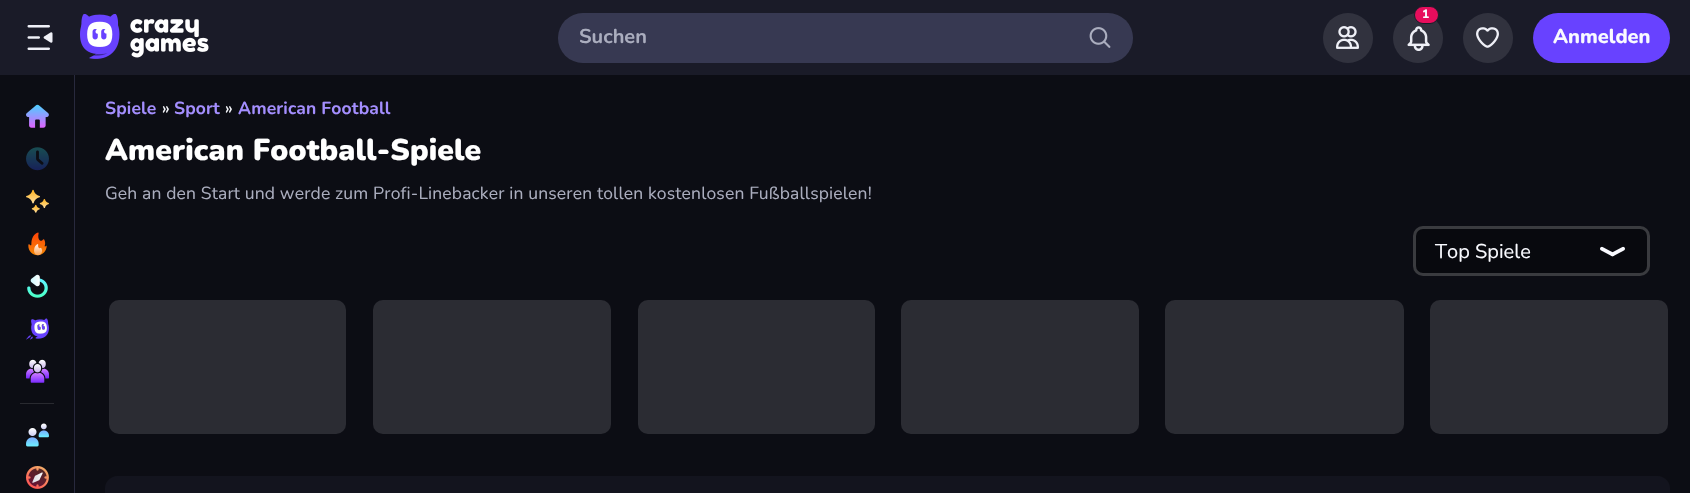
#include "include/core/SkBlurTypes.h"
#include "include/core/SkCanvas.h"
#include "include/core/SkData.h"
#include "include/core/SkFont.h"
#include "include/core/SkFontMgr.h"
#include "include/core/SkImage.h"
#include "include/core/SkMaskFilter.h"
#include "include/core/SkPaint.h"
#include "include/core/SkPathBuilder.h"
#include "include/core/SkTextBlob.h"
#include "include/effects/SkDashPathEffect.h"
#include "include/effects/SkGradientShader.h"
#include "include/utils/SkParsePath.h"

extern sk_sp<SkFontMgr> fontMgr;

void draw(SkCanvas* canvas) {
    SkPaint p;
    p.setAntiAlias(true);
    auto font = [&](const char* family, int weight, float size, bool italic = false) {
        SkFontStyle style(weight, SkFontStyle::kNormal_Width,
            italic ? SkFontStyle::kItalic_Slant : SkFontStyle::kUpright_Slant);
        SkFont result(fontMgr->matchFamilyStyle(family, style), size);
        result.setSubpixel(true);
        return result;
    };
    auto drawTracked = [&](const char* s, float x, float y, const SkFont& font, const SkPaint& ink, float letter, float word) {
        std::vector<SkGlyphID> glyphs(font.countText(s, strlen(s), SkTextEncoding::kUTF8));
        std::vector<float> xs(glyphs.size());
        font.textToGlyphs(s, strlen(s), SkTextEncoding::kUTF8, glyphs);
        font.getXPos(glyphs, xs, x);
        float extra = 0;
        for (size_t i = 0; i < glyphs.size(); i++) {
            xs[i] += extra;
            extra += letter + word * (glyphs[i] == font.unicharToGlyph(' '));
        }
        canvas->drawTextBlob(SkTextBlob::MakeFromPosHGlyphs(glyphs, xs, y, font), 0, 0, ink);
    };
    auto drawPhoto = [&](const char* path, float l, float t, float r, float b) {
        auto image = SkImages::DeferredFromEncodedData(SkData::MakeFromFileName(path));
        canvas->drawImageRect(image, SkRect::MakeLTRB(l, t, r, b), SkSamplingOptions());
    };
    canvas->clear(0xFF0C0D14);
    p.setColor(0xFF1A1B28);
    canvas->drawRect(SkRect::MakeLTRB(0, 0, 1690, 75), p);
    drawPhoto("media/1.png", 27, 25, 53, 50);
    drawPhoto("media/2.png", 80, 14, 120, 59);
    drawPhoto("media/3.png", 130, 19, 209, 58);
    p.setColor(0xFF373952);
    canvas->drawRoundRect(SkRect::MakeLTRB(558, 13, 1133, 63), 25, 25, p);
    auto font1 = font("Nunito", 700, 20);
    p.setColor(0xFFAAADBE);
    canvas->drawString("Suchen", 579, 43, font1, p);
    drawPhoto("media/4.png", 1089, 27, 1111, 48);
    p.setColor(0xFF31323E);
    canvas->drawCircle(1348, 38, 25, p);
    drawPhoto("media/5.png", 1336, 26, 1359, 49);
    canvas->drawCircle(1418, 38, 25, p);
    p.setColor(0xFFE70D5C);
    canvas->drawRoundRect(SkRect::MakeLTRB(1414.5f, 6.5f, 1438.5f, 23.5f), 8.5f, 8.5f, p);
    p.setStyle(SkPaint::kStroke_Style);
    p.setStrokeWidth(1);
    p.setColor(0xFF1A1B28);
    canvas->drawRoundRect(SkRect::MakeLTRB(1414.5f, 6.5f, 1438.5f, 23.5f), 8.5f, 8.5f, p);
    auto font2 = font("Nunito", 800, 12);
    p.setStyle(SkPaint::kFill_Style);
    p.setColor(0xFFF9FAFF);
    drawTracked("1", 1422, 18, font2, p, 0.15f, 0);
    drawPhoto("media/6.png", 1407, 26, 1430, 51);
    p.setColor(0xFF31323E);
    canvas->drawCircle(1488, 38, 25, p);
    drawPhoto("media/7.png", 1476, 27, 1499, 48);
    p.setColor(0xFF6842FF);
    canvas->drawRoundRect(SkRect::MakeLTRB(1533, 13, 1670, 63), 25, 25, p);
    auto font3 = font("Nunito", 800, 20);
    p.setColor(0xFFF9FAFF);
    canvas->drawString("Anmelden", 1553, 43, font3, p);
    p.setColor(0xFF28293D);
    canvas->drawRect(SkRect::MakeLTRB(74, 75, 75, 493), p);
    drawPhoto("media/8.png", 26, 104, 49, 128);
    drawPhoto("media/9.png", 26, 147, 49, 171);
    drawPhoto("media/10.png", 26, 189, 49, 213);
    drawPhoto("media/11.png", 28, 232, 47, 256);
    drawPhoto("media/12.png", 27, 274, 48, 298);
    drawPhoto("media/13.png", 26, 318, 49, 340);
    drawPhoto("media/14.png", 26, 359, 49, 383);
    p.setColor(0xFF292A30);
    canvas->drawRect(SkRect::MakeLTRB(20, 403, 54, 404), p);
    drawPhoto("media/15.png", 26, 423, 49, 447);
    drawPhoto("media/16.png", 26, 466, 49, 489);
    auto font4 = font("Nunito", 700, 17.5f);
    p.setColor(0xFFA48EFF);
    drawTracked("Spiele", 105, 114, font4, p, 0.15f, 0);
    auto font5 = font("Nunito", 400, 17.5f);
    p.setColor(0xFFF9FAFF);
    drawTracked("»", 162, 114, font5, p, 0.15f, 0);
    p.setColor(0xFFA48EFF);
    drawTracked("Sport", 174, 114, font4, p, 0.15f, 0);
    p.setColor(0xFFF9FAFF);
    drawTracked("»", 225, 114, font5, p, 0.15f, 0);
    p.setColor(0xFFA48EFF);
    drawTracked("American Football", 238, 114, font4, p, 0.15f, 0);
    auto font6 = font("Nunito", 900, 30);
    p.setColor(0xFFFFFFFF);
    drawTracked("American Football-Spiele", 105, 160, font6, p, 0.15f, 0);
    p.setColor(0xFFAAADBE);
    drawTracked("Geh an den Start und werde zum Profi-Linebacker in unseren tollen kostenlosen Fußballspielen!", 105, 199, font5, p, 0.15f, 0);
    p.setColor(0xFF08090E);
    canvas->drawRoundRect(SkRect::MakeLTRB(1413, 226, 1650, 276), 10, 10, p);
    p.setStyle(SkPaint::kStroke_Style);
    p.setStrokeWidth(3);
    p.setColor(0x33FFFFFF);
    canvas->drawRoundRect(SkRect::MakeLTRB(1414.5f, 227.5f, 1648.5f, 274.5f), 8.5f, 8.5f, p);
    auto font7 = font("Nunito", 400, 20);
    p.setStyle(SkPaint::kFill_Style);
    p.setColor(0xFFF9FAFF);
    canvas->drawString("Top Spiele", 1435, 258, font7, p);
    drawPhoto("media/17.png", 1600, 246, 1625, 257);
    p.setColor(0xFF2B2C33);
    canvas->drawRoundRect(SkRect::MakeLTRB(109, 300, 346, 434), 10, 10, p);
    canvas->drawRoundRect(SkRect::MakeLTRB(373, 300, 611, 434), 10, 10, p);
    canvas->drawRoundRect(SkRect::MakeLTRB(638, 300, 875, 434), 10, 10, p);
    canvas->drawRoundRect(SkRect::MakeLTRB(901, 300, 1139, 434), 10, 10, p);
    canvas->drawRoundRect(SkRect::MakeLTRB(1165, 300, 1404, 434), 10, 10, p);
    canvas->drawRoundRect(SkRect::MakeLTRB(1430, 300, 1668, 434), 10, 10, p);
    p.setColor(0xFF13141E);
    canvas->drawRoundRect(SkRect::MakeLTRB(105, 476, 1670, 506), 13, 13, p);
}
